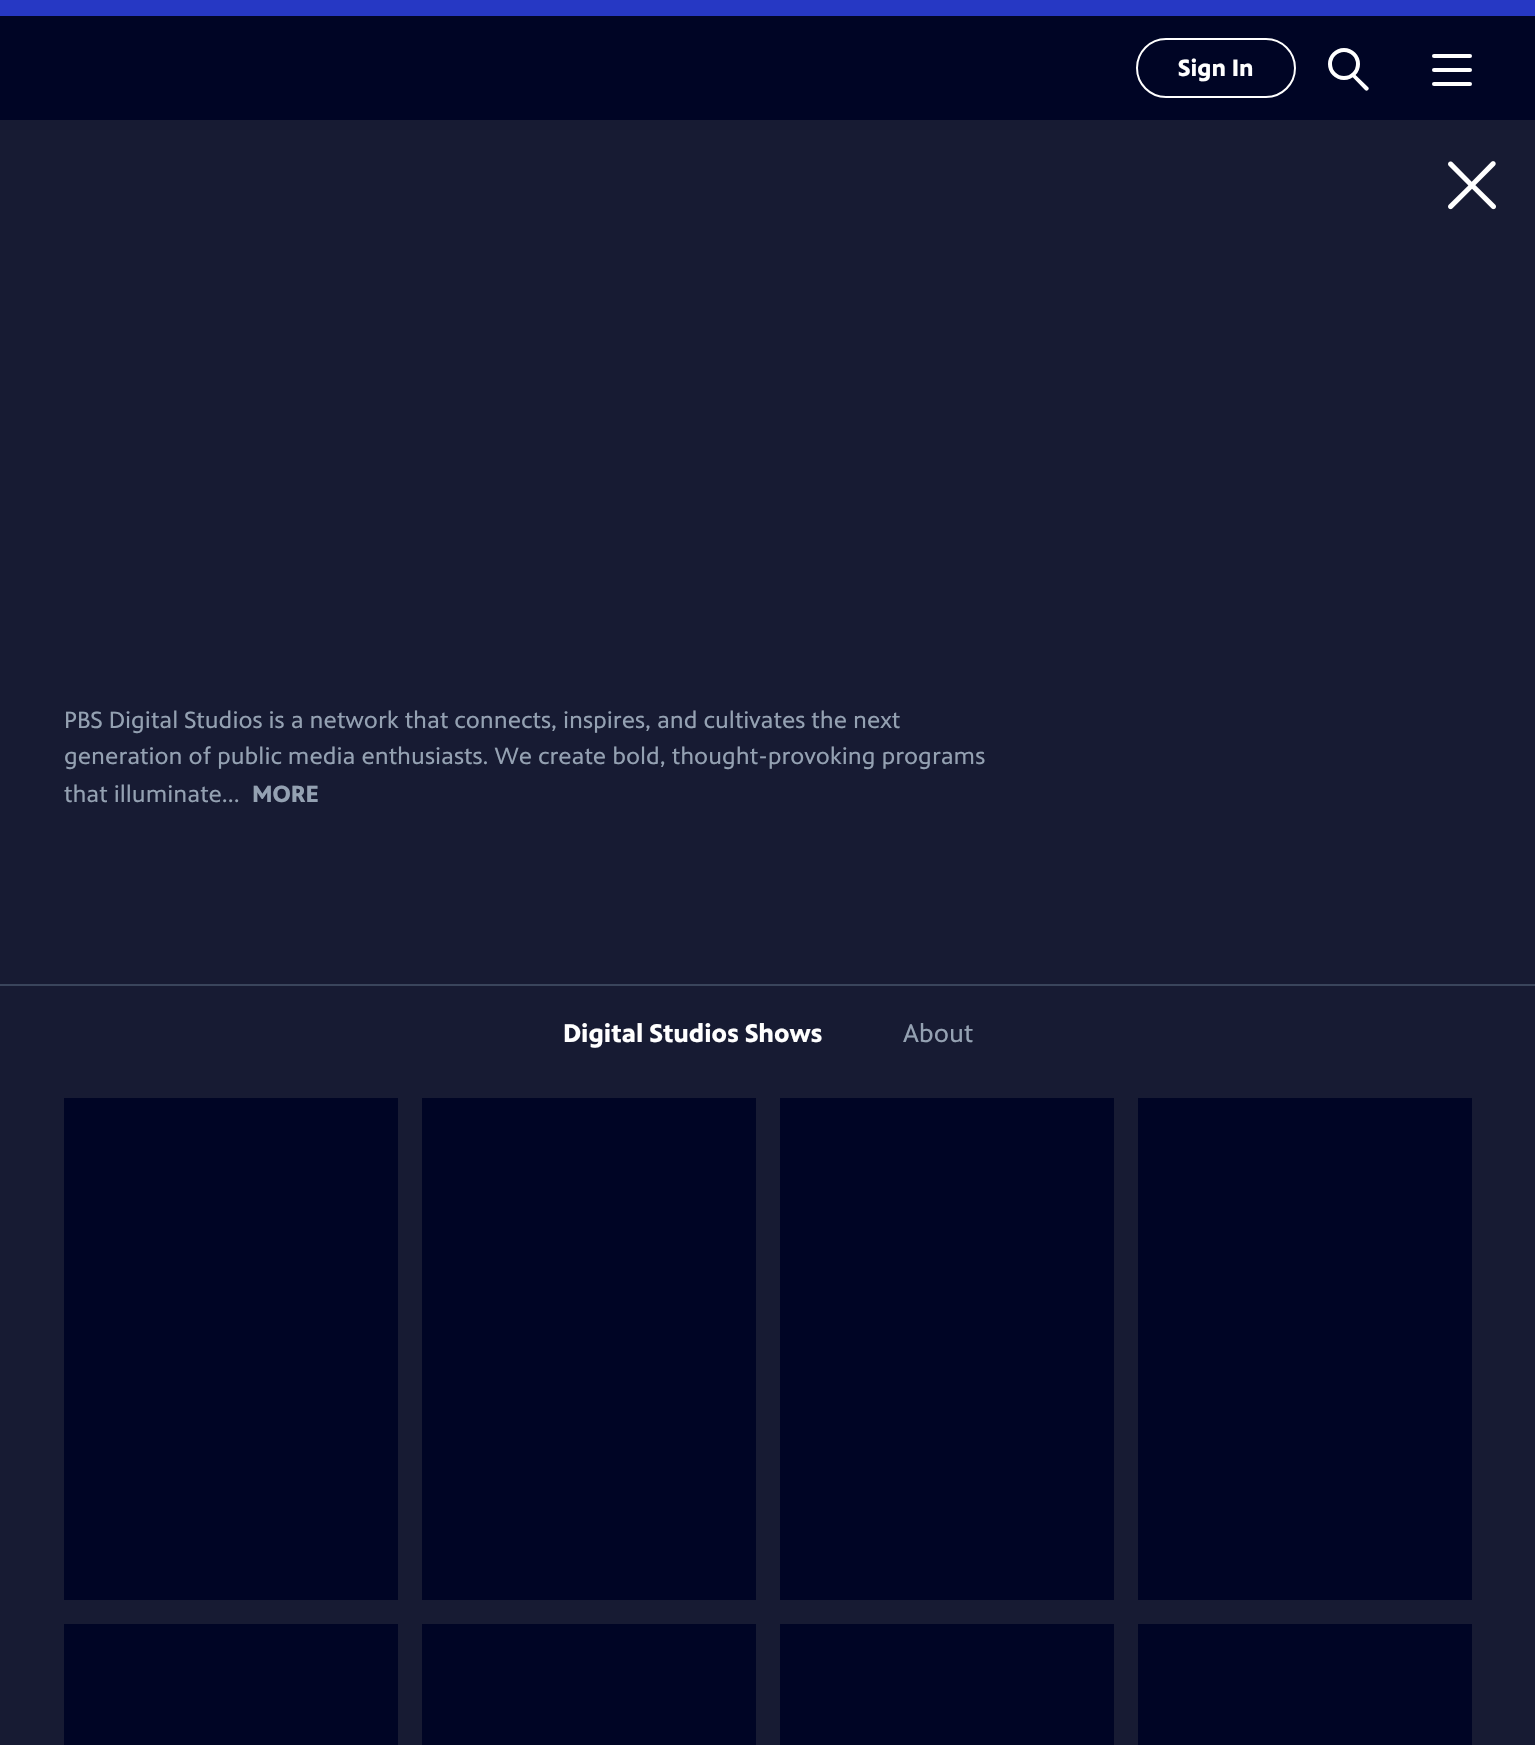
#include "include/core/SkBlurTypes.h"
#include "include/core/SkCanvas.h"
#include "include/core/SkData.h"
#include "include/core/SkFont.h"
#include "include/core/SkFontMgr.h"
#include "include/core/SkImage.h"
#include "include/core/SkMaskFilter.h"
#include "include/core/SkPaint.h"
#include "include/core/SkPathBuilder.h"
#include "include/core/SkTextBlob.h"
#include "include/effects/SkDashPathEffect.h"
#include "include/effects/SkGradientShader.h"
#include "include/utils/SkParsePath.h"

extern sk_sp<SkFontMgr> fontMgr;

void draw(SkCanvas* canvas) {
    SkPaint p;
    p.setAntiAlias(true);
    auto font = [&](const char* family, int weight, float size, bool italic = false) {
        SkFontStyle style(weight, SkFontStyle::kNormal_Width,
            italic ? SkFontStyle::kItalic_Slant : SkFontStyle::kUpright_Slant);
        SkFont result(fontMgr->matchFamilyStyle(family, style), size);
        result.setSubpixel(true);
        return result;
    };
    auto drawPhoto = [&](const char* path, float l, float t, float r, float b) {
        auto image = SkImages::DeferredFromEncodedData(SkData::MakeFromFileName(path));
        canvas->drawImageRect(image, SkRect::MakeLTRB(l, t, r, b), SkSamplingOptions());
    };
    canvas->clear(0xFF000525);
    p.setColor(0xFF2638C4);
    canvas->drawRect(SkRect::MakeLTRB(0, 0, 1535, 16), p);
    p.setStyle(SkPaint::kStroke_Style);
    p.setStrokeWidth(2);
    p.setColor(0xFFFFFFFF);
    canvas->drawRoundRect(SkRect::MakeLTRB(1137, 39, 1295, 97), 29, 29, p);
    auto font1 = font("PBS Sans", 700, 24);
    p.setStyle(SkPaint::kFill_Style);
    canvas->drawString("Sign In", 1178, 76, font1, p);
    p.setStyle(SkPaint::kStroke_Style);
    p.setStrokeWidth(4);
    canvas->drawCircle(1344, 64, 14, p);
    p.setStyle(SkPaint::kFill_Style);
    canvas->drawPath(SkPathBuilder().moveTo(1365, 90).lineTo(1352, 76.5f).cubicTo(1351, 76, 1351, 74.5f, 1352, 74).cubicTo(1352.5f, 73, 1354, 73, 1354.5f, 74).lineTo(1368, 87).cubicTo(1369, 88, 1369, 89, 1368, 90).cubicTo(1367, 91, 1366, 91, 1365, 90).close().detach(), p);
    canvas->drawRoundRect(SkRect::MakeLTRB(1432, 54, 1472, 58), 2, 2, p);
    canvas->drawRoundRect(SkRect::MakeLTRB(1432, 68, 1472, 72), 2, 2, p);
    canvas->drawRoundRect(SkRect::MakeLTRB(1432, 82, 1472, 86), 2, 2, p);
    p.setColor(0xFF171B33);
    canvas->drawRect(SkRect::MakeLTRB(0, 120, 1535, 1745), p);
    drawPhoto("media/1.png", 1448, 161, 1496, 210);
    auto font2 = font("PBS Sans", 400, 24);
    p.setColor(0xFF94A1B2);
    {
        const struct { const char* s; float x, y; } items[] = {
            {"PBS Digital Studios is a network that connects, inspires, and cultivates the next", 64, 728},
            {"generation of public media enthusiasts. We create bold, thought-provoking programs", 64, 764},
            {"that illuminate...", 64, 802},
        };
        for (auto [s, x, y] : items) {
            canvas->drawString(s, x, y, font2, p);
        }
    }
    canvas->drawString("MORE", 252, 802, font1, p);
    p.setColor(0xFF3A455C);
    canvas->drawRect(SkRect::MakeLTRB(0, 984, 1535, 986), p);
    auto font3 = font("PBS Sans", 700, 26);
    p.setColor(0xFFFFFFFF);
    canvas->drawString("Digital Studios Shows", 563, 1042, font3, p);
    auto font4 = font("PBS Sans", 400, 26);
    p.setColor(0xFF94A1B2);
    canvas->drawString("About", 903, 1042, font4, p);
    {
        const struct { float l, t, r, b; SkColor color; } items[] = {
            {64, 1098, 398, 1600, 0xFF000525},
            {422, 1098, 756, 1600, 0xFF000525},
            {780, 1098, 1114, 1600, 0xFF000525},
            {1138, 1098, 1472, 1600, 0xFF000525},
            {64, 1624, 398, 1745, 0xFF000525},
            {422, 1624, 756, 1745, 0xFF000525},
            {780, 1624, 1114, 1745, 0xFF000525},
            {1138, 1624, 1472, 1745, 0xFF000525},
        };
        for (auto [l, t, r, b, color] : items) {
            p.setColor(color);
            canvas->drawRect(SkRect::MakeLTRB(l, t, r, b), p);
        }
    }
}
